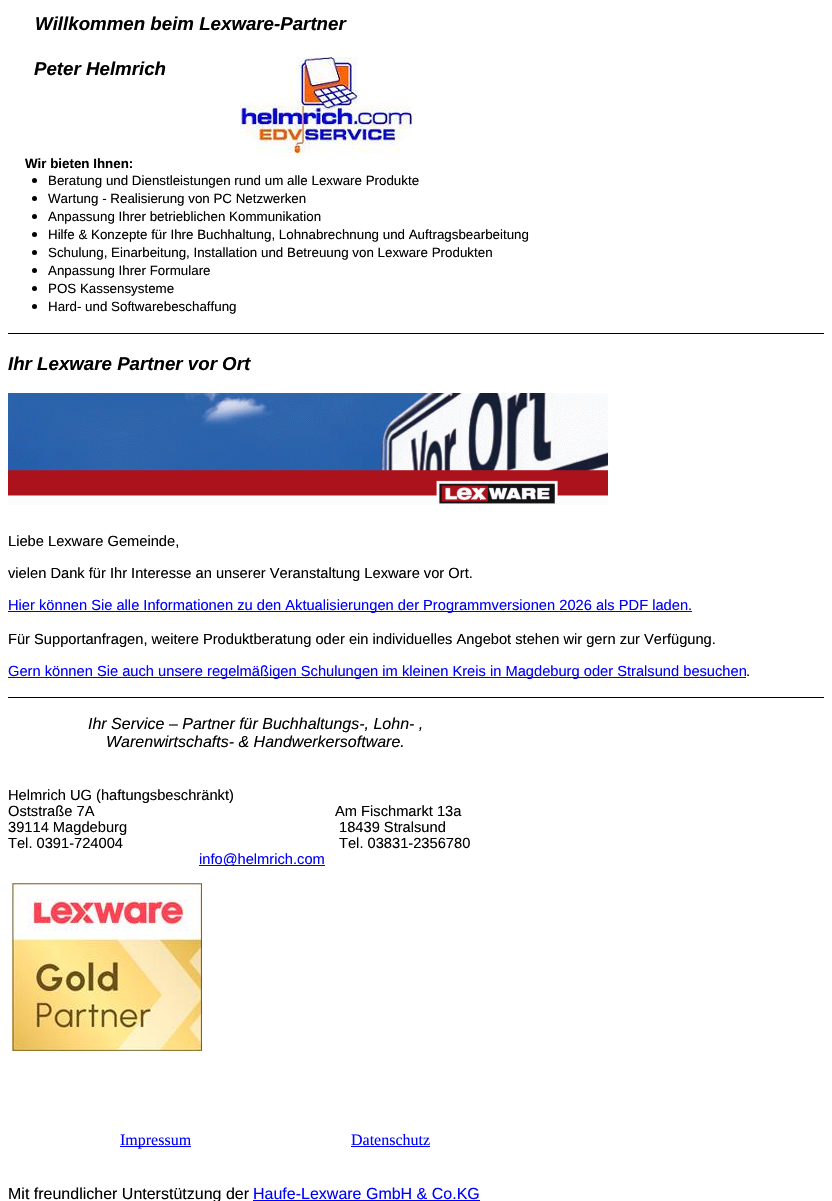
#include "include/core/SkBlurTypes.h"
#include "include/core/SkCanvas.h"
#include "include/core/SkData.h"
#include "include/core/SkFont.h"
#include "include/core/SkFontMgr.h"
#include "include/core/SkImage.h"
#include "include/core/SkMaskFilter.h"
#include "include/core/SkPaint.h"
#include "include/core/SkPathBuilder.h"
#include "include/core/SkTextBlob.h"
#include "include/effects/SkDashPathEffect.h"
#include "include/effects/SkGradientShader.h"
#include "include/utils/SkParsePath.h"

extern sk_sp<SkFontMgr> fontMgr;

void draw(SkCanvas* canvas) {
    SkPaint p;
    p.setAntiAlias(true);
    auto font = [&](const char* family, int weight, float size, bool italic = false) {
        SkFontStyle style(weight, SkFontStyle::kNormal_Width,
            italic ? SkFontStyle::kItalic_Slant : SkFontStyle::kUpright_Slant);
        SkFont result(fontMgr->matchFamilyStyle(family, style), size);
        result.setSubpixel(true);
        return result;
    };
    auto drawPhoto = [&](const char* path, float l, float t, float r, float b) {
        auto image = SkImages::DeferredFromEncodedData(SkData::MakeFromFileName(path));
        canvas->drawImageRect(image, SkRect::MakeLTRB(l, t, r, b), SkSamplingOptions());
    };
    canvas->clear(0xFFFFFFFF);
    auto font1 = font("Liberation Sans", 700, 18.7f, true);
    p.setColor(0xFF000000);
    canvas->drawString("Willkommen beim Lexware-Partner", 35, 30, font1, p);
    canvas->drawString("Peter Helmrich", 34, 75, font1, p);
    drawPhoto("media/1.png", 240, 57, 412, 153);
    auto font2 = font("Liberation Sans", 700, 13.35f);
    canvas->drawString("Wir bieten Ihnen:", 25, 168, font2, p);
    canvas->drawCircle(34.5f, 180.5f, 2.5f, p);
    auto font3 = font("Liberation Sans", 400, 13.35f);
    canvas->drawString("Beratung und Dienstleistungen rund um alle Lexware Produkte", 48, 185, font3, p);
    canvas->drawCircle(34.5f, 198.5f, 2.5f, p);
    canvas->drawString("Wartung - Realisierung von PC Netzwerken", 48, 203, font3, p);
    canvas->drawCircle(34.5f, 216.5f, 2.5f, p);
    canvas->drawString("Anpassung Ihrer betrieblichen Kommunikation", 48, 221, font3, p);
    canvas->drawCircle(34.5f, 234.5f, 2.5f, p);
    canvas->drawString("Hilfe & Konzepte für Ihre Buchhaltung, Lohnabrechnung und Auftragsbearbeitung", 48, 239, font3, p);
    canvas->drawCircle(34.5f, 252.5f, 2.5f, p);
    canvas->drawString("Schulung, Einarbeitung, Installation und Betreuung von Lexware Produkten", 48, 257, font3, p);
    canvas->drawCircle(34.5f, 270.5f, 2.5f, p);
    canvas->drawString("Anpassung Ihrer Formulare", 48, 275, font3, p);
    canvas->drawCircle(34.5f, 288.5f, 2.5f, p);
    canvas->drawString("POS Kassensysteme", 48, 293, font3, p);
    canvas->drawCircle(34.5f, 306.5f, 2.5f, p);
    canvas->drawString("Hard- und Softwarebeschaffung", 48, 311, font3, p);
    canvas->drawRect(SkRect::MakeLTRB(8, 333, 824, 334), p);
    canvas->drawString("Ihr Lexware Partner vor Ort", 8, 370, font1, p);
    drawPhoto("media/2.png", 8, 393, 608, 505);
    auto font4 = font("Liberation Sans", 400, 14.67f);
    canvas->drawString("Liebe Lexware Gemeinde,", 8, 546, font4, p);
    canvas->drawString("vielen Dank für Ihr Interesse an unserer Veranstaltung Lexware vor Ort.", 8, 578, font4, p);
    p.setColor(0xFF0000FF);
    canvas->drawRect(SkRect::MakeLTRB(8, 611, 692, 612), p);
    canvas->drawString("Hier können Sie alle Informationen zu den Aktualisierungen der Programmversionen 2026 als PDF laden.", 8, 610, font4, p);
    p.setColor(0xFF000000);
    canvas->drawString("Für Supportanfragen, weitere Produktberatung oder ein individuelles Angebot stehen wir gern zur Verfügung.", 8, 644, font4, p);
    p.setColor(0xFF0000FF);
    canvas->drawRect(SkRect::MakeLTRB(8, 677, 746, 678), p);
    canvas->drawString("Gern können Sie auch unsere regelmäßigen Schulungen im kleinen Kreis in Magdeburg oder Stralsund besuchen", 8, 676, font4, p);
    p.setColor(0xFF000000);
    canvas->drawString(".", 746, 676, font4, p);
    canvas->drawRect(SkRect::MakeLTRB(8, 697, 824, 698), p);
    auto font5 = font("Liberation Sans", 400, 16, true);
    canvas->drawString("Ihr Service – Partner für Buchhaltungs-, Lohn- ,", 88, 729, font5, p);
    canvas->drawString("Warenwirtschafts- & Handwerkersoftware.", 106, 747, font5, p);
    {
        const struct { const char* s; float x, y; } items[] = {
            {"Helmrich UG (haftungsbeschränkt)", 8, 800},
            {"Oststraße 7A", 8, 816},
            {"Am Fischmarkt 13a", 335, 816},
            {"39114 Magdeburg", 8, 832},
            {"18439 Stralsund", 339, 832},
            {"Tel. 0391-724004", 8, 848},
            {"Tel. 03831-2356780", 339, 848},
        };
        for (auto [s, x, y] : items) {
            canvas->drawString(s, x, y, font4, p);
        }
    }
    p.setColor(0xFF0000FF);
    canvas->drawRect(SkRect::MakeLTRB(199, 865, 325, 866), p);
    canvas->drawString("info@helmrich.com", 199, 864, font4, p);
    drawPhoto("media/3.png", 12, 883, 202, 1051);
    canvas->drawRect(SkRect::MakeLTRB(120, 1146, 191, 1147), p);
    auto font6 = font("Liberation Serif", 400, 16);
    canvas->drawString("Impressum", 120, 1145, font6, p);
    canvas->drawString("Datenschutz", 351, 1145, font6, p);
    canvas->drawRect(SkRect::MakeLTRB(351, 1146, 430, 1147), p);
    auto font7 = font("Liberation Sans", 400, 16);
    p.setColor(0xFF000000);
    canvas->drawString("Mit freundlicher Unterstützung der", 8, 1199, font7, p);
    p.setColor(0xFF0000FF);
    canvas->drawString("Haufe-Lexware GmbH & Co.KG", 253, 1199, font7, p);
    canvas->drawRect(SkRect::MakeLTRB(253, 1200, 480, 1201), p);
}
